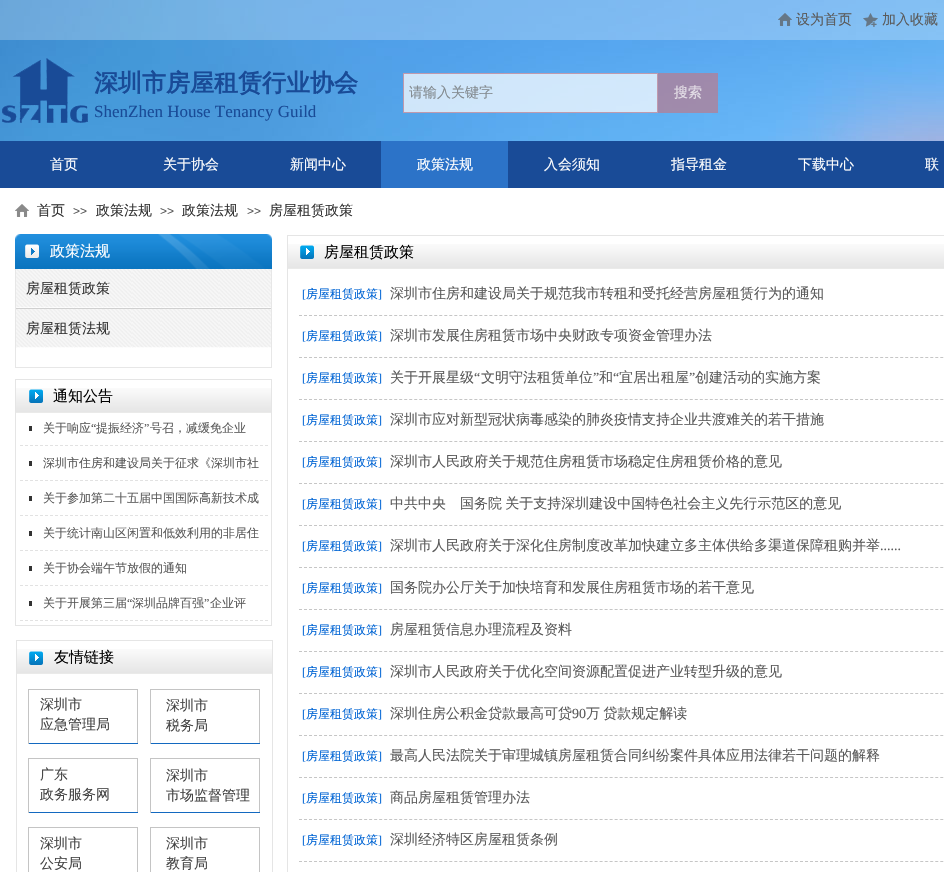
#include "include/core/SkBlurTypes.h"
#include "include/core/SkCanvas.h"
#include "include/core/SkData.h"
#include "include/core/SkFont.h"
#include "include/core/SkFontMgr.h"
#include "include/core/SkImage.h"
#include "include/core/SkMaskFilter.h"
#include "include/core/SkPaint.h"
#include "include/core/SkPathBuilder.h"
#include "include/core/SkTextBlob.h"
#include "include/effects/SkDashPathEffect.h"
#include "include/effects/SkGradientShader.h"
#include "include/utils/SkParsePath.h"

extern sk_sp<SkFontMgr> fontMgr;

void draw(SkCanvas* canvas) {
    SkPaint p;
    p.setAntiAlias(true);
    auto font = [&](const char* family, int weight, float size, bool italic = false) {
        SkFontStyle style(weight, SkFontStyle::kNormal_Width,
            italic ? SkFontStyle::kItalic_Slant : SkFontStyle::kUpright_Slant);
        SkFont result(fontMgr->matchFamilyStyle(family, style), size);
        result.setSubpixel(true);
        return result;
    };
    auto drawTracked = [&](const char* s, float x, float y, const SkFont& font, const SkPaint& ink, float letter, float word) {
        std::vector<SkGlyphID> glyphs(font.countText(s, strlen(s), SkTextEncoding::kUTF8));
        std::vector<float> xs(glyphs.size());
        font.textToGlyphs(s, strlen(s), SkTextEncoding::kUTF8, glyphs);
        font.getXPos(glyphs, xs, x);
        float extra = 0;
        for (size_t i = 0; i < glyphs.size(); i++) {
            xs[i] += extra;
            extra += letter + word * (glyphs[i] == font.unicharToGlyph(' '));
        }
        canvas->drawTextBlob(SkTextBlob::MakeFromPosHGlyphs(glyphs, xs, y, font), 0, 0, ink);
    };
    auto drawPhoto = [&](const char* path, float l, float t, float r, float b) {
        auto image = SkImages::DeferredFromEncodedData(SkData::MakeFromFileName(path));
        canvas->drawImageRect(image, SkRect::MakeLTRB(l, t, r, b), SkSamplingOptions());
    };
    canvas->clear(0xFFFFFFFF);
    drawPhoto("media/1.png", 0, 0, 944, 141);
    p.setColor(0x3DFFFFFF);
    canvas->drawRect(SkRect::MakeLTRB(0, 0, 944, 40), p);
    drawPhoto("media/2.png", 778, 13, 792, 26);
    auto font1 = font("WenQuanYi Zen Hei", 500, 14);
    p.setColor(0xFF5A5A5A);
    canvas->drawString("设为首页", 796, 24, font1, p);
    canvas->drawString("加入收藏", 882, 24, font1, p);
    drawPhoto("media/3.png", 863, 13, 878, 27);
    drawPhoto("media/4.png", 2, 58, 88, 123);
    auto font2 = font("WenQuanYi Zen Hei", 700, 24);
    p.setColor(0xFF194B97);
    canvas->drawString("深圳市房屋租赁行业协会", 94, 91, font2, p);
    p.setColor(0xB8FFFFFF);
    canvas->drawRect(SkRect::MakeLTRB(403, 73, 658, 113), p);
    p.setStyle(SkPaint::kStroke_Style);
    p.setStrokeWidth(1);
    p.setColor(0xB8B87B8F);
    canvas->drawRect(SkRect::MakeLTRB(403.5f, 73.5f, 657.5f, 112.5f), p);
    p.setStyle(SkPaint::kFill_Style);
    p.setColor(0xFF838A8F);
    canvas->drawString("请输入关键字", 409, 97, font1, p);
    p.setColor(0xB8B87B8F);
    canvas->drawRect(SkRect::MakeLTRB(658, 73, 718, 113), p);
    p.setColor(0xFFE4DEE7);
    canvas->drawString("搜索", 674, 97, font1, p);
    auto font3 = font("Liberation Serif", 400, 17);
    p.setColor(0xFF194B97);
    canvas->drawString("ShenZhen House Tenancy Guild", 94, 117, font3, p);
    canvas->drawRect(SkRect::MakeLTRB(0, 141, 944, 188), p);
    p.setColor(0xFFFFFFFF);
    {
        const struct { const char* s; float x, y; } items[] = {
            {"首页", 50, 169},
            {"关于协会", 163, 169},
            {"新闻中心", 290, 169},
        };
        for (auto [s, x, y] : items) {
            canvas->drawString(s, x, y, font1, p);
        }
    }
    p.setColor(0xFF2C73C8);
    canvas->drawRect(SkRect::MakeLTRB(381, 141, 508, 188), p);
    p.setColor(0xFFFFFFFF);
    {
        const struct { const char* s; float x, y; } items[] = {
            {"政策法规", 417, 169},
            {"入会须知", 544, 169},
            {"指导租金", 671, 169},
            {"下载中心", 798, 169},
            {"联", 925, 169},
        };
        for (auto [s, x, y] : items) {
            canvas->drawString(s, x, y, font1, p);
        }
    }
    drawPhoto("media/5.png", 15, 204, 29, 217);
    p.setColor(0xFF333333);
    canvas->drawString("首页", 37, 215, font1, p);
    auto font4 = font("Liberation Sans", 400, 12);
    p.setColor(0xFF5A5A5A);
    canvas->drawString(">>", 73, 215, font4, p);
    p.setColor(0xFF333333);
    canvas->drawString("政策法规", 96, 215, font1, p);
    p.setColor(0xFF5A5A5A);
    canvas->drawString(">>", 160, 215, font4, p);
    p.setColor(0xFF333333);
    canvas->drawString("政策法规", 182, 215, font1, p);
    p.setColor(0xFF5A5A5A);
    canvas->drawString(">>", 247, 215, font4, p);
    p.setColor(0xFF333333);
    canvas->drawString("房屋租赁政策", 269, 215, font1, p);
    p.setStyle(SkPaint::kStroke_Style);
    p.setColor(0xFFE7E7E7);
    canvas->drawRect(SkRect::MakeLTRB(15.5f, 268.5f, 271.5f, 367.5f), p);
    drawPhoto("media/6.png", 15, 234, 272, 269);
    drawPhoto("media/7.png", 25, 244, 39, 258);
    auto font5 = font("WenQuanYi Zen Hei", 500, 15);
    p.setStyle(SkPaint::kFill_Style);
    p.setColor(0xFFFFFFFF);
    canvas->drawString("政策法规", 50, 256, font5, p);
    drawPhoto("media/8.png", 16, 269, 271, 308);
    p.setColor(0xFFD0D0D0);
    canvas->drawRect(SkRect::MakeLTRB(16, 308, 271, 309), p);
    p.setColor(0xFF333333);
    canvas->drawString("房屋租赁政策", 26, 293, font1, p);
    drawPhoto("media/8.png", 16, 309, 271, 348);
    canvas->drawString("房屋租赁法规", 26, 333, font1, p);
    drawPhoto("media/9.png", 16, 388, 271, 413);
    p.setStyle(SkPaint::kStroke_Style);
    p.setColor(0xFFE5E5E5);
    canvas->drawRect(SkRect::MakeLTRB(15.5f, 379.5f, 271.5f, 625.5f), p);
    drawPhoto("media/10.png", 29, 389, 43, 403);
    p.setStyle(SkPaint::kFill_Style);
    p.setColor(0xFF000000);
    canvas->drawString("通知公告", 53, 401, font5, p);
    p.setColor(0xFF333333);
    canvas->drawRect(SkRect::MakeLTRB(29, 426, 32, 431), p);
    auto font6 = font("WenQuanYi Zen Hei", 500, 12);
    p.setColor(0xFF5A5A5A);
    canvas->drawString("关于响应", 43, 432, font6, p);
    auto font7 = font("Liberation Serif", 400, 12);
    canvas->drawString("“", 91, 432, font7, p);
    canvas->drawString("提振经济", 96, 432, font6, p);
    canvas->drawString("”", 144, 432, font7, p);
    canvas->drawString("号召，减缓免企业", 150, 432, font6, p);
    p.setStyle(SkPaint::kStroke_Style);
    p.setColor(0xFFE2E2E2);
    p.setPathEffect(SkDashPathEffect::Make({{3, 2}}, 0));
    canvas->drawPath(SkPathBuilder().moveTo(20, 445.5f).lineTo(268, 445.5f).detach(), p);
    p.setPathEffect(nullptr);
    p.setStyle(SkPaint::kFill_Style);
    p.setColor(0xFF333333);
    canvas->drawRect(SkRect::MakeLTRB(29, 461, 32, 466), p);
    p.setColor(0xFF5A5A5A);
    canvas->drawString("深圳市住房和建设局关于征求《深圳市社", 43, 467, font6, p);
    p.setStyle(SkPaint::kStroke_Style);
    p.setColor(0xFFE2E2E2);
    p.setPathEffect(SkDashPathEffect::Make({{3, 2}}, 0));
    canvas->drawPath(SkPathBuilder().moveTo(20, 480.5f).lineTo(268, 480.5f).detach(), p);
    p.setPathEffect(nullptr);
    p.setStyle(SkPaint::kFill_Style);
    p.setColor(0xFF333333);
    canvas->drawRect(SkRect::MakeLTRB(29, 496, 32, 501), p);
    p.setColor(0xFF5A5A5A);
    canvas->drawString("关于参加第二十五届中国国际高新技术成", 43, 502, font6, p);
    p.setStyle(SkPaint::kStroke_Style);
    p.setColor(0xFFE2E2E2);
    p.setPathEffect(SkDashPathEffect::Make({{3, 2}}, 0));
    canvas->drawPath(SkPathBuilder().moveTo(20, 515.5f).lineTo(268, 515.5f).detach(), p);
    p.setPathEffect(nullptr);
    p.setStyle(SkPaint::kFill_Style);
    p.setColor(0xFF333333);
    canvas->drawRect(SkRect::MakeLTRB(29, 531, 32, 536), p);
    p.setColor(0xFF5A5A5A);
    canvas->drawString("关于统计南山区闲置和低效利用的非居住", 43, 537, font6, p);
    p.setStyle(SkPaint::kStroke_Style);
    p.setColor(0xFFE2E2E2);
    p.setPathEffect(SkDashPathEffect::Make({{3, 2}}, 0));
    canvas->drawPath(SkPathBuilder().moveTo(20, 550.5f).lineTo(268, 550.5f).detach(), p);
    p.setPathEffect(nullptr);
    p.setStyle(SkPaint::kFill_Style);
    p.setColor(0xFF333333);
    canvas->drawRect(SkRect::MakeLTRB(29, 566, 32, 571), p);
    p.setColor(0xFF5A5A5A);
    canvas->drawString("关于协会端午节放假的通知", 43, 572, font6, p);
    p.setStyle(SkPaint::kStroke_Style);
    p.setColor(0xFFE2E2E2);
    p.setPathEffect(SkDashPathEffect::Make({{3, 2}}, 0));
    canvas->drawPath(SkPathBuilder().moveTo(20, 585.5f).lineTo(268, 585.5f).detach(), p);
    p.setPathEffect(nullptr);
    p.setStyle(SkPaint::kFill_Style);
    p.setColor(0xFF333333);
    canvas->drawRect(SkRect::MakeLTRB(29, 601, 32, 606), p);
    p.setColor(0xFF5A5A5A);
    canvas->drawString("关于开展第三届", 43, 607, font6, p);
    canvas->drawString("“", 127, 607, font7, p);
    canvas->drawString("深圳品牌百强", 132, 607, font6, p);
    canvas->drawString("”", 204, 607, font7, p);
    canvas->drawString("企业评", 210, 607, font6, p);
    p.setStyle(SkPaint::kStroke_Style);
    p.setColor(0xFFE2E2E2);
    p.setPathEffect(SkDashPathEffect::Make({{3, 2}}, 0));
    canvas->drawPath(SkPathBuilder().moveTo(20, 620.5f).lineTo(268, 620.5f).detach(), p);
    p.setPathEffect(nullptr);
    drawPhoto("media/9.png", 17, 649, 272, 674);
    p.setColor(0xFFE5E5E5);
    canvas->drawRect(SkRect::MakeLTRB(16.5f, 640.5f, 272.5f, 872.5f), p);
    drawPhoto("media/11.png", 29, 651, 43, 665);
    p.setStyle(SkPaint::kFill_Style);
    p.setColor(0xFF000000);
    canvas->drawString("友情链接", 54, 662, font5, p);
    {
        const struct { float l, t, r, b; SkColor color; } items[] = {
            {28, 689, 138, 690, 0xFFC4C4C4},
            {137, 689, 138, 744, 0xFFC4C4C4},
            {28, 743, 138, 744, 0xFF1369C0},
            {28, 689, 29, 744, 0xFFC4C4C4},
            {150, 689, 260, 690, 0xFFC4C4C4},
            {259, 689, 260, 744, 0xFFC4C4C4},
            {150, 743, 260, 744, 0xFF1369C0},
            {150, 689, 151, 744, 0xFFC4C4C4},
        };
        for (auto [l, t, r, b, color] : items) {
            p.setColor(color);
            canvas->drawRect(SkRect::MakeLTRB(l, t, r, b), p);
        }
    }
    p.setColor(0xFF434343);
    {
        const struct { const char* s; float x, y; } items[] = {
            {"深圳市", 40, 709},
            {"应急管理局", 40, 729},
            {"深圳市", 166, 710},
            {"税务局", 166, 730},
        };
        for (auto [s, x, y] : items) {
            canvas->drawString(s, x, y, font1, p);
        }
    }
    {
        const struct { float l, t, r, b; SkColor color; } items[] = {
            {28, 758, 138, 759, 0xFFC4C4C4},
            {137, 758, 138, 813, 0xFFC4C4C4},
            {28, 812, 138, 813, 0xFF1369C0},
            {28, 758, 29, 813, 0xFFC4C4C4},
            {150, 758, 260, 759, 0xFFC4C4C4},
            {259, 758, 260, 813, 0xFFC4C4C4},
            {150, 812, 260, 813, 0xFF1369C0},
            {150, 758, 151, 813, 0xFFC4C4C4},
        };
        for (auto [l, t, r, b, color] : items) {
            p.setColor(color);
            canvas->drawRect(SkRect::MakeLTRB(l, t, r, b), p);
        }
    }
    p.setColor(0xFF434343);
    {
        const struct { const char* s; float x, y; } items[] = {
            {"广东", 40, 779},
            {"政务服务网", 40, 799},
            {"深圳市", 166, 780},
            {"市场监督管理", 166, 800},
        };
        for (auto [s, x, y] : items) {
            canvas->drawString(s, x, y, font1, p);
        }
    }
    {
        const struct { float l, t, r, b; SkColor color; } items[] = {
            {28, 827, 138, 828, 0xFFC4C4C4},
            {137, 827, 138, 872, 0xFFC4C4C4},
            {28, 827, 29, 872, 0xFFC4C4C4},
            {150, 827, 260, 828, 0xFFC4C4C4},
            {259, 827, 260, 872, 0xFFC4C4C4},
            {150, 827, 151, 872, 0xFFC4C4C4},
        };
        for (auto [l, t, r, b, color] : items) {
            p.setColor(color);
            canvas->drawRect(SkRect::MakeLTRB(l, t, r, b), p);
        }
    }
    p.setColor(0xFF434343);
    {
        const struct { const char* s; float x, y; } items[] = {
            {"深圳市", 40, 848},
            {"公安局", 40, 868},
            {"深圳市", 166, 848},
            {"教育局", 166, 868},
        };
        for (auto [s, x, y] : items) {
            canvas->drawString(s, x, y, font1, p);
        }
    }
    drawPhoto("media/12.png", 288, 244, 944, 269);
    p.setStyle(SkPaint::kStroke_Style);
    p.setColor(0xFFE5E5E5);
    canvas->drawRect(SkRect::MakeLTRB(287.5f, 235.5f, 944.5f, 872.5f), p);
    drawPhoto("media/10.png", 300, 245, 314, 259);
    p.setStyle(SkPaint::kFill_Style);
    p.setColor(0xFF000000);
    canvas->drawString("房屋租赁政策", 324, 257, font5, p);
    p.setColor(0xFF0064D4);
    canvas->drawString("[", 302, 298, font7, p);
    canvas->drawString("房屋租赁政策", 306, 298, font6, p);
    canvas->drawString("]", 378, 298, font7, p);
    p.setColor(0xFF5A5A5A);
    canvas->drawString("深圳市住房和建设局关于规范我市转租和受托经营房屋租赁行为的通知", 390, 298, font1, p);
    p.setStyle(SkPaint::kStroke_Style);
    p.setColor(0xFFC6C6C6);
    p.setPathEffect(SkDashPathEffect::Make({{3, 2.01f}}, 0));
    canvas->drawPath(SkPathBuilder().moveTo(299, 315.5f).lineTo(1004, 315.5f).detach(), p);
    p.setPathEffect(nullptr);
    p.setStyle(SkPaint::kFill_Style);
    p.setColor(0xFF0064D4);
    canvas->drawString("[", 302, 340, font7, p);
    canvas->drawString("房屋租赁政策", 306, 340, font6, p);
    canvas->drawString("]", 378, 340, font7, p);
    p.setColor(0xFF5A5A5A);
    canvas->drawString("深圳市发展住房租赁市场中央财政专项资金管理办法", 390, 340, font1, p);
    p.setStyle(SkPaint::kStroke_Style);
    p.setColor(0xFFC6C6C6);
    p.setPathEffect(SkDashPathEffect::Make({{3, 2.01f}}, 0));
    canvas->drawPath(SkPathBuilder().moveTo(299, 357.5f).lineTo(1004, 357.5f).detach(), p);
    p.setPathEffect(nullptr);
    p.setStyle(SkPaint::kFill_Style);
    p.setColor(0xFF0064D4);
    canvas->drawString("[", 302, 382, font7, p);
    canvas->drawString("房屋租赁政策", 306, 382, font6, p);
    canvas->drawString("]", 378, 382, font7, p);
    p.setColor(0xFF5A5A5A);
    canvas->drawString("关于开展星级", 390, 382, font1, p);
    auto font8 = font("Liberation Serif", 400, 14);
    canvas->drawString("“", 474, 382, font8, p);
    canvas->drawString("文明守法租赁单位", 481, 382, font1, p);
    canvas->drawString("”", 593, 382, font8, p);
    canvas->drawString("和", 599, 382, font1, p);
    canvas->drawString("“", 613, 382, font8, p);
    canvas->drawString("宜居出租屋", 619, 382, font1, p);
    canvas->drawString("”", 689, 382, font8, p);
    canvas->drawString("创建活动的实施方案", 695, 382, font1, p);
    p.setStyle(SkPaint::kStroke_Style);
    p.setColor(0xFFC6C6C6);
    p.setPathEffect(SkDashPathEffect::Make({{3, 2.01f}}, 0));
    canvas->drawPath(SkPathBuilder().moveTo(299, 399.5f).lineTo(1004, 399.5f).detach(), p);
    p.setPathEffect(nullptr);
    p.setStyle(SkPaint::kFill_Style);
    p.setColor(0xFF0064D4);
    canvas->drawString("[", 302, 424, font7, p);
    canvas->drawString("房屋租赁政策", 306, 424, font6, p);
    canvas->drawString("]", 378, 424, font7, p);
    p.setColor(0xFF5A5A5A);
    canvas->drawString("深圳市应对新型冠状病毒感染的肺炎疫情支持企业共渡难关的若干措施", 390, 424, font1, p);
    p.setStyle(SkPaint::kStroke_Style);
    p.setColor(0xFFC6C6C6);
    p.setPathEffect(SkDashPathEffect::Make({{3, 2.01f}}, 0));
    canvas->drawPath(SkPathBuilder().moveTo(299, 441.5f).lineTo(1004, 441.5f).detach(), p);
    p.setPathEffect(nullptr);
    p.setStyle(SkPaint::kFill_Style);
    p.setColor(0xFF0064D4);
    canvas->drawString("[", 302, 466, font7, p);
    canvas->drawString("房屋租赁政策", 306, 466, font6, p);
    canvas->drawString("]", 378, 466, font7, p);
    p.setColor(0xFF5A5A5A);
    canvas->drawString("深圳市人民政府关于规范住房租赁市场稳定住房租赁价格的意见", 390, 466, font1, p);
    p.setStyle(SkPaint::kStroke_Style);
    p.setColor(0xFFC6C6C6);
    p.setPathEffect(SkDashPathEffect::Make({{3, 2.01f}}, 0));
    canvas->drawPath(SkPathBuilder().moveTo(299, 483.5f).lineTo(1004, 483.5f).detach(), p);
    p.setPathEffect(nullptr);
    p.setStyle(SkPaint::kFill_Style);
    p.setColor(0xFF0064D4);
    canvas->drawString("[", 302, 508, font7, p);
    canvas->drawString("房屋租赁政策", 306, 508, font6, p);
    canvas->drawString("]", 378, 508, font7, p);
    p.setColor(0xFF5A5A5A);
    drawTracked("中共中央　国务院 关于支持深圳建设中国特色社会主义先行示范区的意见", 390, 508, font1, p, 0, -1);
    p.setStyle(SkPaint::kStroke_Style);
    p.setColor(0xFFC6C6C6);
    p.setPathEffect(SkDashPathEffect::Make({{3, 2.01f}}, 0));
    canvas->drawPath(SkPathBuilder().moveTo(299, 525.5f).lineTo(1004, 525.5f).detach(), p);
    p.setPathEffect(nullptr);
    p.setStyle(SkPaint::kFill_Style);
    p.setColor(0xFF0064D4);
    canvas->drawString("[", 302, 550, font7, p);
    canvas->drawString("房屋租赁政策", 306, 550, font6, p);
    canvas->drawString("]", 378, 550, font7, p);
    p.setColor(0xFF5A5A5A);
    canvas->drawString("深圳市人民政府关于深化住房制度改革加快建立多主体供给多渠道保障租购并举", 390, 550, font1, p);
    canvas->drawString("......", 880, 550, font8, p);
    p.setStyle(SkPaint::kStroke_Style);
    p.setColor(0xFFC6C6C6);
    p.setPathEffect(SkDashPathEffect::Make({{3, 2.01f}}, 0));
    canvas->drawPath(SkPathBuilder().moveTo(299, 567.5f).lineTo(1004, 567.5f).detach(), p);
    p.setPathEffect(nullptr);
    p.setStyle(SkPaint::kFill_Style);
    p.setColor(0xFF0064D4);
    canvas->drawString("[", 302, 592, font7, p);
    canvas->drawString("房屋租赁政策", 306, 592, font6, p);
    canvas->drawString("]", 378, 592, font7, p);
    p.setColor(0xFF5A5A5A);
    canvas->drawString("国务院办公厅关于加快培育和发展住房租赁市场的若干意见", 390, 592, font1, p);
    p.setStyle(SkPaint::kStroke_Style);
    p.setColor(0xFFC6C6C6);
    p.setPathEffect(SkDashPathEffect::Make({{3, 2.01f}}, 0));
    canvas->drawPath(SkPathBuilder().moveTo(299, 609.5f).lineTo(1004, 609.5f).detach(), p);
    p.setPathEffect(nullptr);
    p.setStyle(SkPaint::kFill_Style);
    p.setColor(0xFF0064D4);
    canvas->drawString("[", 302, 634, font7, p);
    canvas->drawString("房屋租赁政策", 306, 634, font6, p);
    canvas->drawString("]", 378, 634, font7, p);
    p.setColor(0xFF5A5A5A);
    canvas->drawString("房屋租赁信息办理流程及资料", 390, 634, font1, p);
    p.setStyle(SkPaint::kStroke_Style);
    p.setColor(0xFFC6C6C6);
    p.setPathEffect(SkDashPathEffect::Make({{3, 2.01f}}, 0));
    canvas->drawPath(SkPathBuilder().moveTo(299, 651.5f).lineTo(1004, 651.5f).detach(), p);
    p.setPathEffect(nullptr);
    p.setStyle(SkPaint::kFill_Style);
    p.setColor(0xFF0064D4);
    canvas->drawString("[", 302, 676, font7, p);
    canvas->drawString("房屋租赁政策", 306, 676, font6, p);
    canvas->drawString("]", 378, 676, font7, p);
    p.setColor(0xFF5A5A5A);
    canvas->drawString("深圳市人民政府关于优化空间资源配置促进产业转型升级的意见", 390, 676, font1, p);
    p.setStyle(SkPaint::kStroke_Style);
    p.setColor(0xFFC6C6C6);
    p.setPathEffect(SkDashPathEffect::Make({{3, 2.01f}}, 0));
    canvas->drawPath(SkPathBuilder().moveTo(299, 693.5f).lineTo(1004, 693.5f).detach(), p);
    p.setPathEffect(nullptr);
    p.setStyle(SkPaint::kFill_Style);
    p.setColor(0xFF0064D4);
    canvas->drawString("[", 302, 718, font7, p);
    canvas->drawString("房屋租赁政策", 306, 718, font6, p);
    canvas->drawString("]", 378, 718, font7, p);
    p.setColor(0xFF5A5A5A);
    canvas->drawString("深圳住房公积金贷款最高可贷", 390, 718, font1, p);
    canvas->drawString("90", 572, 718, font8, p);
    drawTracked("万 贷款规定解读", 586, 718, font1, p, 0, -1);
    p.setStyle(SkPaint::kStroke_Style);
    p.setColor(0xFFC6C6C6);
    p.setPathEffect(SkDashPathEffect::Make({{3, 2.01f}}, 0));
    canvas->drawPath(SkPathBuilder().moveTo(299, 735.5f).lineTo(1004, 735.5f).detach(), p);
    p.setPathEffect(nullptr);
    p.setStyle(SkPaint::kFill_Style);
    p.setColor(0xFF0064D4);
    canvas->drawString("[", 302, 760, font7, p);
    canvas->drawString("房屋租赁政策", 306, 760, font6, p);
    canvas->drawString("]", 378, 760, font7, p);
    p.setColor(0xFF5A5A5A);
    canvas->drawString("最高人民法院关于审理城镇房屋租赁合同纠纷案件具体应用法律若干问题的解释", 390, 760, font1, p);
    p.setStyle(SkPaint::kStroke_Style);
    p.setColor(0xFFC6C6C6);
    p.setPathEffect(SkDashPathEffect::Make({{3, 2.01f}}, 0));
    canvas->drawPath(SkPathBuilder().moveTo(299, 777.5f).lineTo(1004, 777.5f).detach(), p);
    p.setPathEffect(nullptr);
    p.setStyle(SkPaint::kFill_Style);
    p.setColor(0xFF0064D4);
    canvas->drawString("[", 302, 802, font7, p);
    canvas->drawString("房屋租赁政策", 306, 802, font6, p);
    canvas->drawString("]", 378, 802, font7, p);
    p.setColor(0xFF5A5A5A);
    canvas->drawString("商品房屋租赁管理办法", 390, 802, font1, p);
    p.setStyle(SkPaint::kStroke_Style);
    p.setColor(0xFFC6C6C6);
    p.setPathEffect(SkDashPathEffect::Make({{3, 2.01f}}, 0));
    canvas->drawPath(SkPathBuilder().moveTo(299, 819.5f).lineTo(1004, 819.5f).detach(), p);
    p.setPathEffect(nullptr);
    p.setStyle(SkPaint::kFill_Style);
    p.setColor(0xFF0064D4);
    canvas->drawString("[", 302, 844, font7, p);
    canvas->drawString("房屋租赁政策", 306, 844, font6, p);
    canvas->drawString("]", 378, 844, font7, p);
    p.setColor(0xFF5A5A5A);
    canvas->drawString("深圳经济特区房屋租赁条例", 390, 844, font1, p);
    p.setStyle(SkPaint::kStroke_Style);
    p.setColor(0xFFC6C6C6);
    p.setPathEffect(SkDashPathEffect::Make({{3, 2.01f}}, 0));
    canvas->drawPath(SkPathBuilder().moveTo(299, 861.5f).lineTo(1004, 861.5f).detach(), p);
    p.setPathEffect(nullptr);
}
